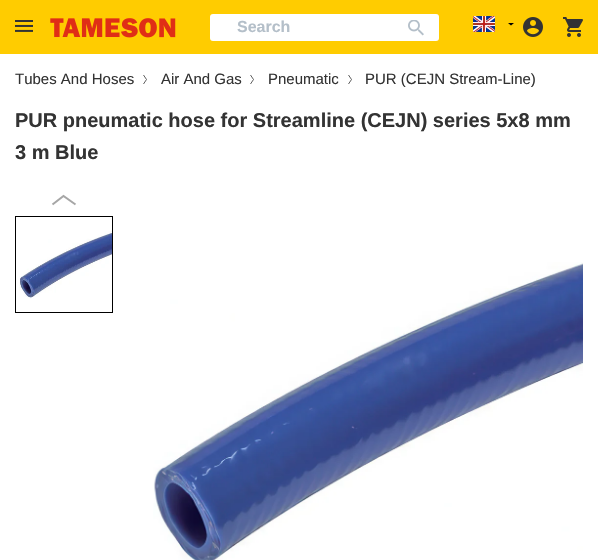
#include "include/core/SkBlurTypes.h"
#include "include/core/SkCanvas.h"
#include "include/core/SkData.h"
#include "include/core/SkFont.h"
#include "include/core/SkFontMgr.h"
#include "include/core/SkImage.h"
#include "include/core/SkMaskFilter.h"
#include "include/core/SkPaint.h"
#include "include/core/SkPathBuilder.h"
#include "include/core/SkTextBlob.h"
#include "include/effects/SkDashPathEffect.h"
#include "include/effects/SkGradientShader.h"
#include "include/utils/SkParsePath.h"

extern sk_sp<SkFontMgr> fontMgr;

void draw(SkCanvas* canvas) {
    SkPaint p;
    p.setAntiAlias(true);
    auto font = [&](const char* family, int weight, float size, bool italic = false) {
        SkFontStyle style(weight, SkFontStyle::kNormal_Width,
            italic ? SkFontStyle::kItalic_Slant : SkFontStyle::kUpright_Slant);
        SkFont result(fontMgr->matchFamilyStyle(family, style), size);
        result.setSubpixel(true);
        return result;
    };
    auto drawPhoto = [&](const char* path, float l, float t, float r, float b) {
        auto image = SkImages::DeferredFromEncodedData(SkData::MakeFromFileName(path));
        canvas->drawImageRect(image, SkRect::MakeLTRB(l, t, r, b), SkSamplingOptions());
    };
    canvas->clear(0xFFFFFFFF);
    p.setColor(0xFFFFCC00);
    canvas->drawRect(SkRect::MakeLTRB(0, 0, 598, 54), p);
    drawPhoto("media/1.png", 15, 20, 33, 32);
    drawPhoto("media/2.png", 50, 18, 176, 38);
    p.setColor(0xFFFFFFFF);
    canvas->drawRoundRect(SkRect::MakeLTRB(210, 14, 439, 41), 3, 3, p);
    auto font1 = font("Liberation Sans", 700, 16);
    p.setColor(0xFFB4BFC9);
    canvas->drawString("Search", 237, 32, font1, p);
    drawPhoto("media/3.png", 408, 20, 424, 36);
    drawPhoto("media/4.png", 473, 16, 495, 32);
    p.setColor(0xFF000000);
    canvas->drawPath(SkPathBuilder().moveTo(511, 25.5f).lineTo(514, 23).lineTo(508, 23).close().detach(), p);
    drawPhoto("media/5.png", 523, 17, 543, 37);
    drawPhoto("media/6.png", 563, 17, 583, 37);
    auto font2 = font("Liberation Sans", 400, 15);
    p.setColor(0xFF333333);
    canvas->drawString("Tubes And Hoses", 15, 84, font2, p);
    p.setStyle(SkPaint::kStroke_Style);
    p.setStrokeWidth(0.8f);
    canvas->drawPath(SkPathBuilder().moveTo(143.5f, 84).lineTo(146.5f, 79.5f).lineTo(143.5f, 75).detach(), p);
    p.setStyle(SkPaint::kFill_Style);
    canvas->drawString("Air And Gas", 161, 84, font2, p);
    p.setStyle(SkPaint::kStroke_Style);
    canvas->drawPath(SkPathBuilder().moveTo(250.5f, 84).lineTo(253.5f, 79.5f).lineTo(250.5f, 75).detach(), p);
    p.setStyle(SkPaint::kFill_Style);
    canvas->drawString("Pneumatic", 268, 84, font2, p);
    p.setStyle(SkPaint::kStroke_Style);
    canvas->drawPath(SkPathBuilder().moveTo(348.5f, 84).lineTo(351.5f, 79.5f).lineTo(348.5f, 75).detach(), p);
    p.setStyle(SkPaint::kFill_Style);
    canvas->drawString("PUR (CEJN Stream-Line)", 365, 84, font2, p);
    auto font3 = font("Liberation Sans", 700, 20);
    canvas->drawString("PUR pneumatic hose for Streamline (CEJN) series 5x8 mm", 15, 127, font3, p);
    canvas->drawString("3 m Blue", 15, 159, font3, p);
    p.setStyle(SkPaint::kStroke_Style);
    p.setStrokeWidth(2);
    p.setColor(0xFFA6A6A6);
    canvas->drawPath(SkPathBuilder().moveTo(75.5f, 204.5f).lineTo(63.5f, 196).lineTo(52.5f, 204.5f).detach(), p);
    drawPhoto("media/7.png", 19, 231, 112, 299);
    p.setStrokeWidth(1);
    p.setColor(0xFF000000);
    canvas->drawRect(SkRect::MakeLTRB(15.5f, 216.5f, 112.5f, 312.5f), p);
    drawPhoto("media/8.png", 153, 262, 583, 560);
}
